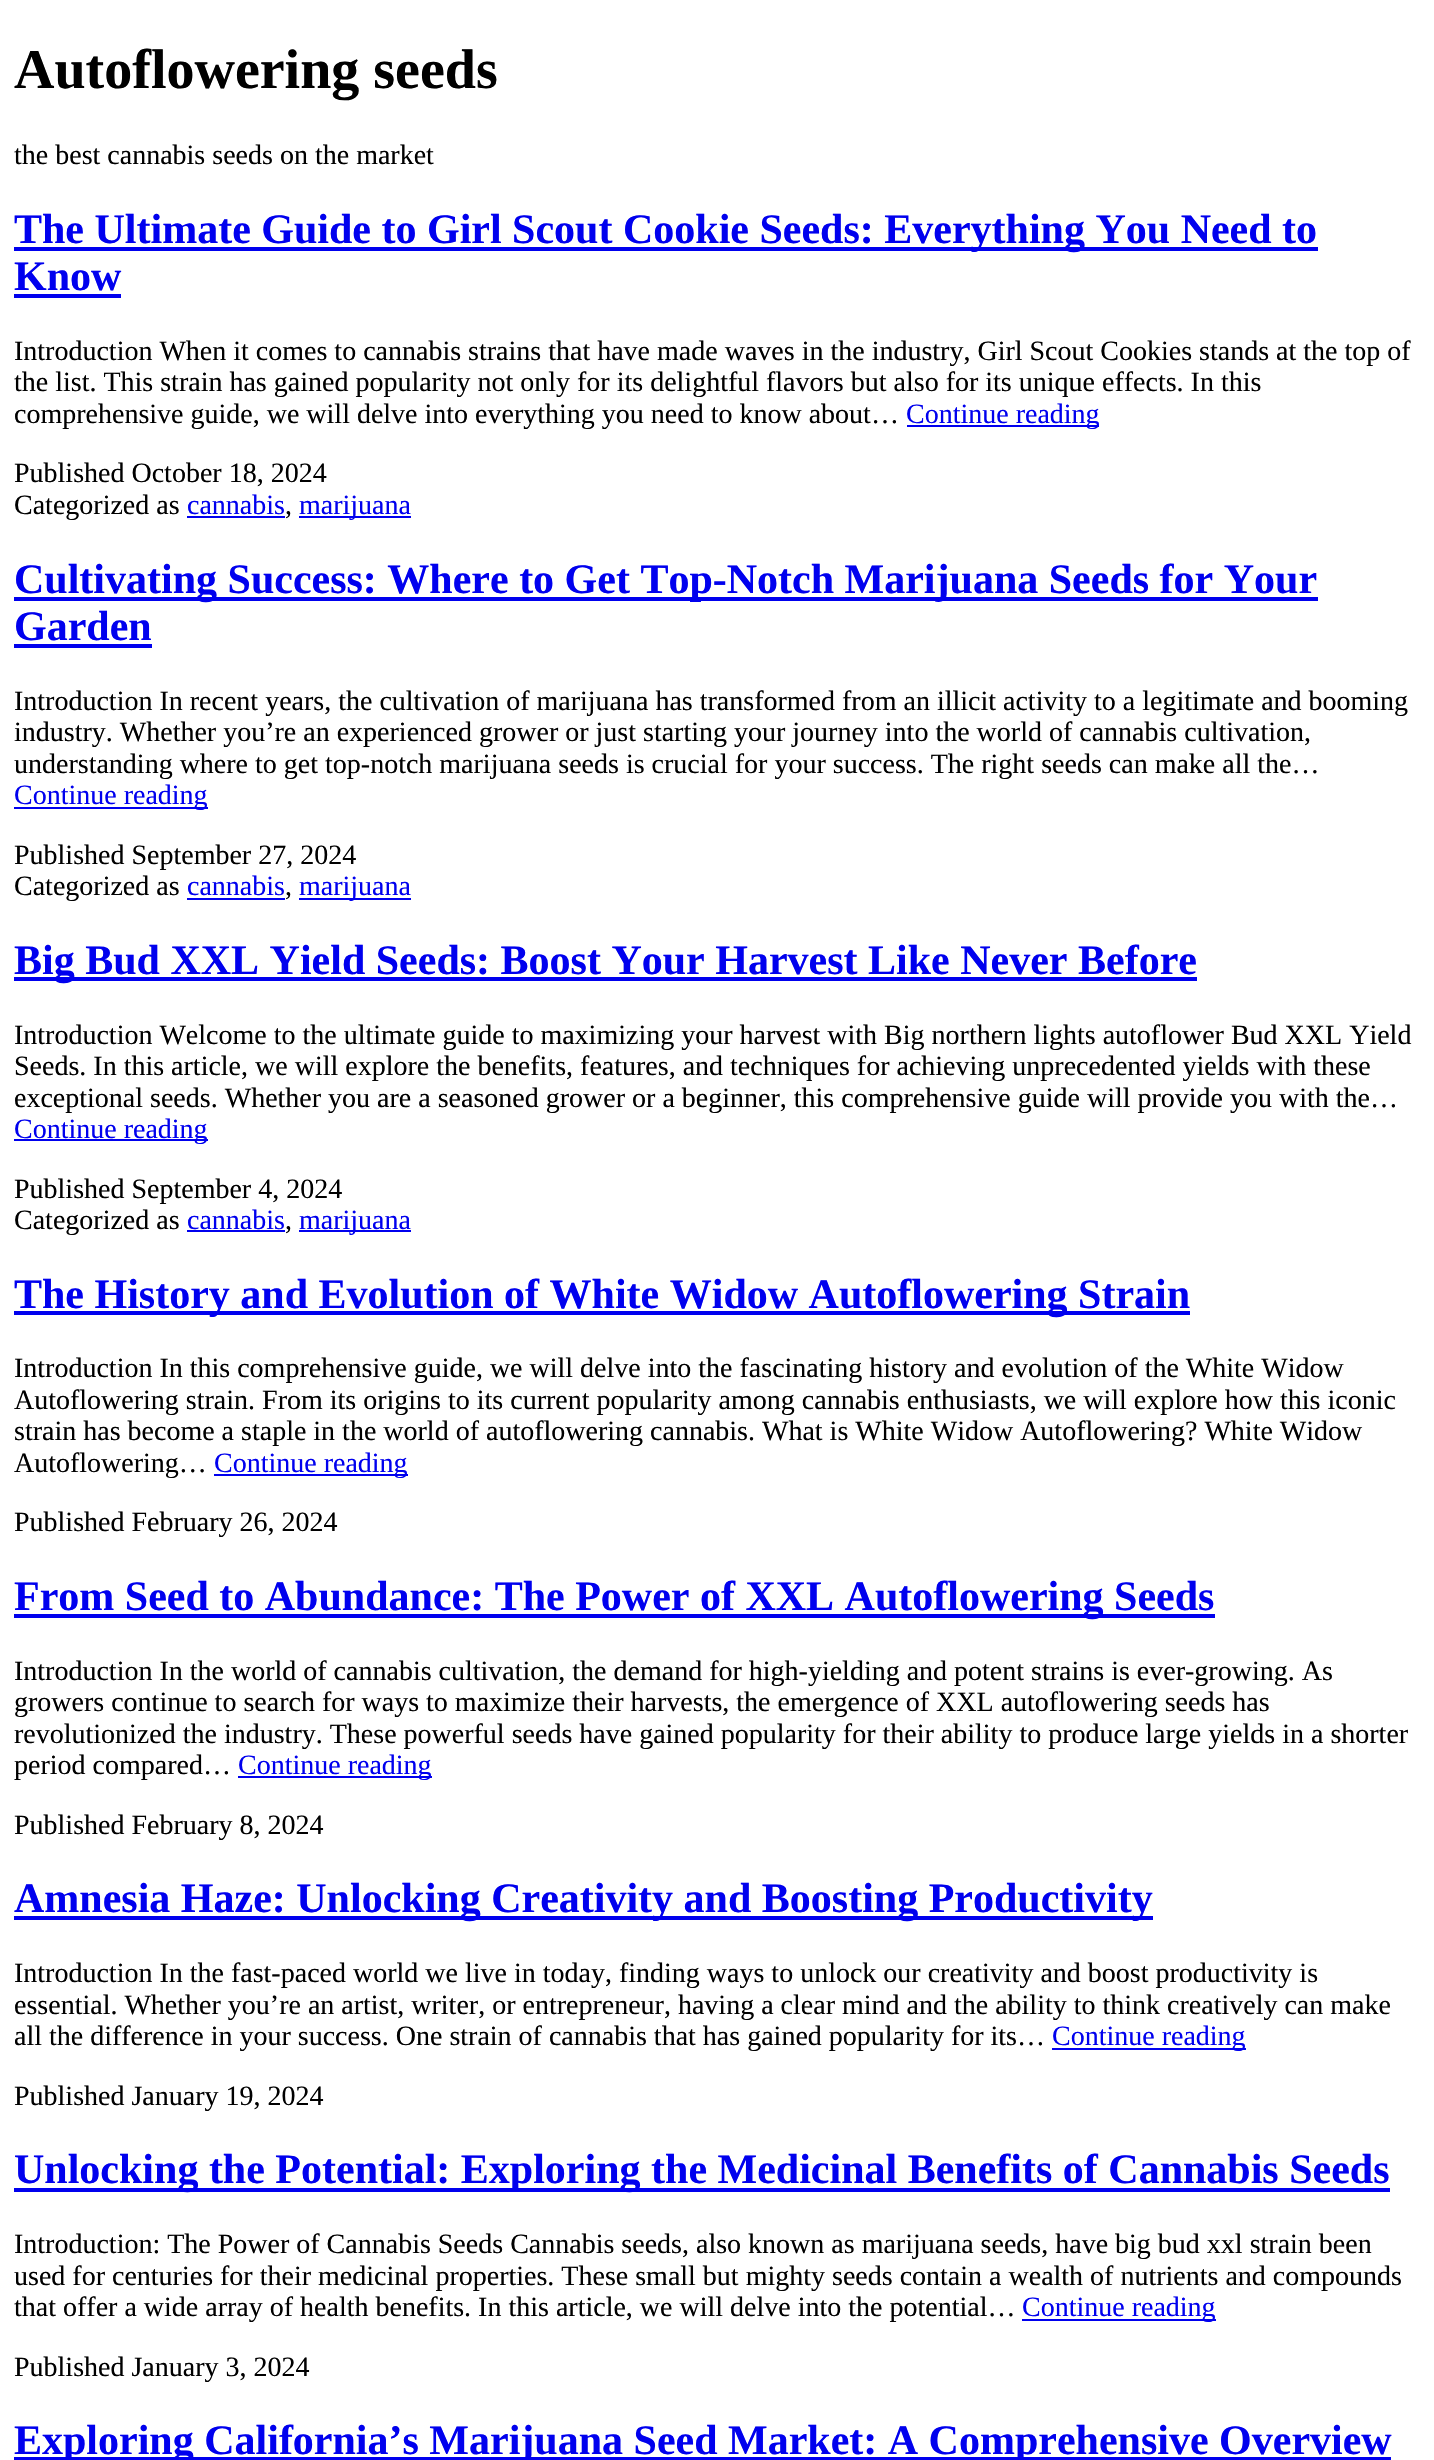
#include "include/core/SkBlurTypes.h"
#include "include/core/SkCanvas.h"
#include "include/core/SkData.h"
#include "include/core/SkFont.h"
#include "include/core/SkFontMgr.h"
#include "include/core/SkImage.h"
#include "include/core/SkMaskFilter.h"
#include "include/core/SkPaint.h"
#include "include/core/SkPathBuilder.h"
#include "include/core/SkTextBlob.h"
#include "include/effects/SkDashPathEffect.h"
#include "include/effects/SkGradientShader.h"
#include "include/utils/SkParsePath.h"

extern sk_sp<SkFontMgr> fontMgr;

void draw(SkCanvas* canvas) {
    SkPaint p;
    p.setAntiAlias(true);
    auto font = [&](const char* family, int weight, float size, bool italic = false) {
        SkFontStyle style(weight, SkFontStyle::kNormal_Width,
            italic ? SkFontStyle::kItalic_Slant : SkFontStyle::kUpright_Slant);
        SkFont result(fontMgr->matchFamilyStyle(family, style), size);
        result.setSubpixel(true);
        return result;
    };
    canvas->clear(0xFFFFFFFF);
    auto font1 = font("Liberation Serif", 700, 56);
    p.setColor(0xFF000000);
    canvas->drawString("Autoflowering seeds", 14, 88, font1, p);
    auto font2 = font("Liberation Serif", 400, 28);
    canvas->drawString("the best cannabis seeds on the market", 14, 164, font2, p);
    p.setColor(0xFF0000EE);
    canvas->drawRect(SkRect::MakeLTRB(14, 247, 1318, 251), p);
    auto font3 = font("Liberation Serif", 700, 42);
    canvas->drawString("The Ultimate Guide to Girl Scout Cookie Seeds: Everything You Need to", 14, 243, font3, p);
    canvas->drawString("Know", 14, 290, font3, p);
    canvas->drawRect(SkRect::MakeLTRB(14, 294, 121, 298), p);
    p.setColor(0xFF000000);
    {
        const struct { const char* s; float x, y; } items[] = {
            {"Introduction When it comes to cannabis strains that have made waves in the industry, Girl Scout Cookies stands at the top of", 14, 360},
            {"the list. This strain has gained popularity not only for its delightful flavors but also for its unique effects. In this", 14, 391},
            {"comprehensive guide, we will delve into everything you need to know about…", 14, 423},
        };
        for (auto [s, x, y] : items) {
            canvas->drawString(s, x, y, font2, p);
        }
    }
    p.setColor(0xFF0000EE);
    canvas->drawRect(SkRect::MakeLTRB(907, 425, 1099, 427), p);
    canvas->drawString("Continue reading", 906, 423, font2, p);
    p.setColor(0xFF000000);
    canvas->drawString("Published October 18, 2024", 14, 482, font2, p);
    canvas->drawString("Categorized as", 14, 514, font2, p);
    p.setColor(0xFF0000EE);
    canvas->drawString("cannabis", 187, 514, font2, p);
    p.setColor(0xFF000000);
    canvas->drawString(",", 285, 514, font2, p);
    p.setColor(0xFF0000EE);
    canvas->drawRect(SkRect::MakeLTRB(187, 516, 285, 518), p);
    canvas->drawRect(SkRect::MakeLTRB(299, 516, 411, 518), p);
    canvas->drawString("marijuana", 299, 514, font2, p);
    canvas->drawRect(SkRect::MakeLTRB(14, 597, 1318, 601), p);
    canvas->drawString("Cultivating Success: Where to Get Top-Notch Marijuana Seeds for Your", 14, 593, font3, p);
    canvas->drawString("Garden", 14, 640, font3, p);
    canvas->drawRect(SkRect::MakeLTRB(14, 644, 152, 648), p);
    p.setColor(0xFF000000);
    {
        const struct { const char* s; float x, y; } items[] = {
            {"Introduction In recent years, the cultivation of marijuana has transformed from an illicit activity to a legitimate and booming", 14, 710},
            {"industry. Whether you’re an experienced grower or just starting your journey into the world of cannabis cultivation,", 14, 741},
            {"understanding where to get top-notch marijuana seeds is crucial for your success. The right seeds can make all the…", 14, 773},
        };
        for (auto [s, x, y] : items) {
            canvas->drawString(s, x, y, font2, p);
        }
    }
    p.setColor(0xFF0000EE);
    canvas->drawRect(SkRect::MakeLTRB(14, 807, 208, 809), p);
    canvas->drawString("Continue reading", 14, 804, font2, p);
    p.setColor(0xFF000000);
    canvas->drawString("Published September 27, 2024", 14, 864, font2, p);
    canvas->drawString("Categorized as", 14, 895, font2, p);
    p.setColor(0xFF0000EE);
    canvas->drawString("cannabis", 187, 895, font2, p);
    p.setColor(0xFF000000);
    canvas->drawString(",", 285, 895, font2, p);
    p.setColor(0xFF0000EE);
    canvas->drawRect(SkRect::MakeLTRB(187, 898, 285, 900), p);
    canvas->drawRect(SkRect::MakeLTRB(299, 898, 411, 900), p);
    canvas->drawString("marijuana", 299, 895, font2, p);
    canvas->drawRect(SkRect::MakeLTRB(14, 977, 1197, 981), p);
    canvas->drawString("Big Bud XXL Yield Seeds: Boost Your Harvest Like Never Before", 14, 974, font3, p);
    p.setColor(0xFF000000);
    {
        const struct { const char* s; float x, y; } items[] = {
            {"Introduction Welcome to the ultimate guide to maximizing your harvest with Big northern lights autoflower Bud XXL Yield", 14, 1044},
            {"Seeds. In this article, we will explore the benefits, features, and techniques for achieving unprecedented yields with these", 14, 1075},
            {"exceptional seeds. Whether you are a seasoned grower or a beginner, this comprehensive guide will provide you with the…", 14, 1107},
        };
        for (auto [s, x, y] : items) {
            canvas->drawString(s, x, y, font2, p);
        }
    }
    p.setColor(0xFF0000EE);
    canvas->drawRect(SkRect::MakeLTRB(14, 1139, 208, 1141), p);
    canvas->drawString("Continue reading", 14, 1138, font2, p);
    p.setColor(0xFF000000);
    canvas->drawString("Published September 4, 2024", 14, 1198, font2, p);
    canvas->drawString("Categorized as", 14, 1229, font2, p);
    p.setColor(0xFF0000EE);
    canvas->drawString("cannabis", 187, 1229, font2, p);
    p.setColor(0xFF000000);
    canvas->drawString(",", 285, 1229, font2, p);
    p.setColor(0xFF0000EE);
    canvas->drawRect(SkRect::MakeLTRB(187, 1230, 285, 1232), p);
    canvas->drawRect(SkRect::MakeLTRB(299, 1230, 411, 1232), p);
    canvas->drawString("marijuana", 299, 1229, font2, p);
    canvas->drawRect(SkRect::MakeLTRB(14, 1311, 1190, 1315), p);
    canvas->drawString("The History and Evolution of White Widow Autoflowering Strain", 14, 1308, font3, p);
    p.setColor(0xFF000000);
    {
        const struct { const char* s; float x, y; } items[] = {
            {"Introduction In this comprehensive guide, we will delve into the fascinating history and evolution of the White Widow", 14, 1377},
            {"Autoflowering strain. From its origins to its current popularity among cannabis enthusiasts, we will explore how this iconic", 14, 1409},
            {"strain has become a staple in the world of autoflowering cannabis. What is White Widow Autoflowering? White Widow", 14, 1440},
            {"Autoflowering…", 14, 1472},
        };
        for (auto [s, x, y] : items) {
            canvas->drawString(s, x, y, font2, p);
        }
    }
    p.setColor(0xFF0000EE);
    canvas->drawRect(SkRect::MakeLTRB(214, 1474, 408, 1476), p);
    canvas->drawString("Continue reading", 214, 1472, font2, p);
    p.setColor(0xFF000000);
    canvas->drawString("Published February 26, 2024", 14, 1531, font2, p);
    p.setColor(0xFF0000EE);
    canvas->drawRect(SkRect::MakeLTRB(14, 1614, 1215, 1618), p);
    canvas->drawString("From Seed to Abundance: The Power of XXL Autoflowering Seeds", 14, 1610, font3, p);
    p.setColor(0xFF000000);
    {
        const struct { const char* s; float x, y; } items[] = {
            {"Introduction In the world of cannabis cultivation, the demand for high-yielding and potent strains is ever-growing. As", 14, 1680},
            {"growers continue to search for ways to maximize their harvests, the emergence of XXL autoflowering seeds has", 14, 1711},
            {"revolutionized the industry. These powerful seeds have gained popularity for their ability to produce large yields in a shorter", 14, 1743},
            {"period compared…", 14, 1774},
        };
        for (auto [s, x, y] : items) {
            canvas->drawString(s, x, y, font2, p);
        }
    }
    p.setColor(0xFF0000EE);
    canvas->drawRect(SkRect::MakeLTRB(238, 1776, 432, 1778), p);
    canvas->drawString("Continue reading", 238, 1774, font2, p);
    p.setColor(0xFF000000);
    canvas->drawString("Published February 8, 2024", 14, 1834, font2, p);
    p.setColor(0xFF0000EE);
    canvas->drawRect(SkRect::MakeLTRB(14, 1916, 1153, 1920), p);
    canvas->drawString("Amnesia Haze: Unlocking Creativity and Boosting Productivity", 14, 1912, font3, p);
    p.setColor(0xFF000000);
    {
        const struct { const char* s; float x, y; } items[] = {
            {"Introduction In the fast-paced world we live in today, finding ways to unlock our creativity and boost productivity is", 14, 1982},
            {"essential. Whether you’re an artist, writer, or entrepreneur, having a clear mind and the ability to think creatively can make", 14, 2014},
            {"all the difference in your success. One strain of cannabis that has gained popularity for its…", 14, 2045},
        };
        for (auto [s, x, y] : items) {
            canvas->drawString(s, x, y, font2, p);
        }
    }
    p.setColor(0xFF0000EE);
    canvas->drawRect(SkRect::MakeLTRB(1052, 2048, 1246, 2050), p);
    canvas->drawString("Continue reading", 1052, 2045, font2, p);
    p.setColor(0xFF000000);
    canvas->drawString("Published January 19, 2024", 14, 2105, font2, p);
    p.setColor(0xFF0000EE);
    canvas->drawRect(SkRect::MakeLTRB(14, 2188, 1390, 2192), p);
    canvas->drawString("Unlocking the Potential: Exploring the Medicinal Benefits of Cannabis Seeds", 14, 2183, font3, p);
    p.setColor(0xFF000000);
    {
        const struct { const char* s; float x, y; } items[] = {
            {"Introduction: The Power of Cannabis Seeds Cannabis seeds, also known as marijuana seeds, have big bud xxl strain been", 14, 2253},
            {"used for centuries for their medicinal properties. These small but mighty seeds contain a wealth of nutrients and compounds", 14, 2285},
            {"that offer a wide array of health benefits. In this article, we will delve into the potential…", 14, 2316},
        };
        for (auto [s, x, y] : items) {
            canvas->drawString(s, x, y, font2, p);
        }
    }
    p.setColor(0xFF0000EE);
    canvas->drawRect(SkRect::MakeLTRB(1022, 2319, 1216, 2321), p);
    canvas->drawString("Continue reading", 1022, 2316, font2, p);
    p.setColor(0xFF000000);
    canvas->drawString("Published January 3, 2024", 14, 2376, font2, p);
    p.setColor(0xFF0000EE);
    canvas->drawRect(SkRect::MakeLTRB(14, 2457, 1391, 2460), p);
    canvas->drawString("Exploring California’s Marijuana Seed Market: A Comprehensive Overview", 14, 2454, font3, p);
}
